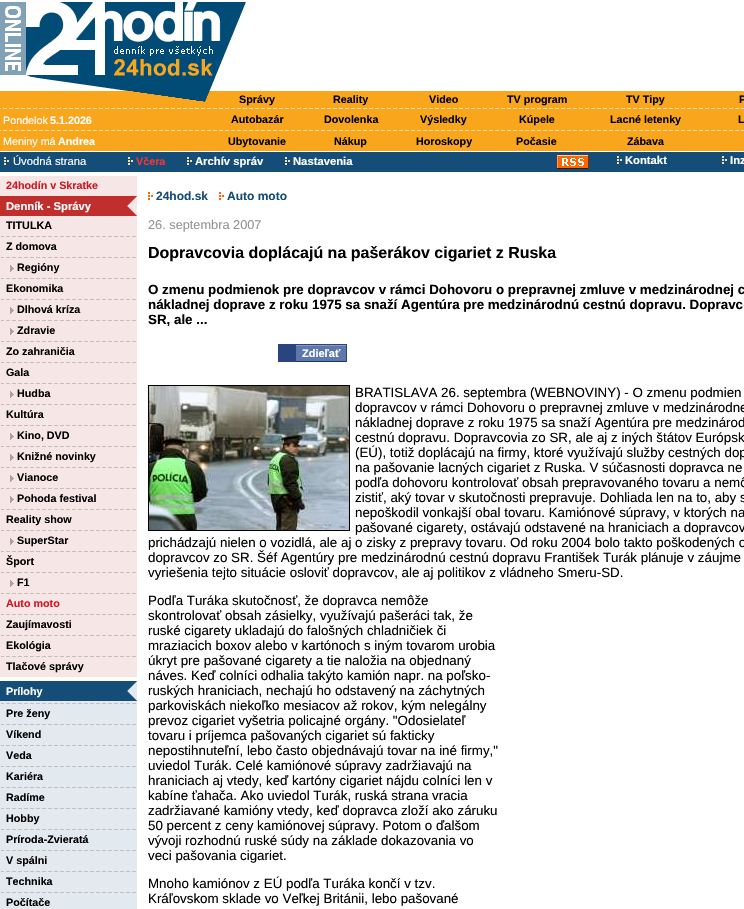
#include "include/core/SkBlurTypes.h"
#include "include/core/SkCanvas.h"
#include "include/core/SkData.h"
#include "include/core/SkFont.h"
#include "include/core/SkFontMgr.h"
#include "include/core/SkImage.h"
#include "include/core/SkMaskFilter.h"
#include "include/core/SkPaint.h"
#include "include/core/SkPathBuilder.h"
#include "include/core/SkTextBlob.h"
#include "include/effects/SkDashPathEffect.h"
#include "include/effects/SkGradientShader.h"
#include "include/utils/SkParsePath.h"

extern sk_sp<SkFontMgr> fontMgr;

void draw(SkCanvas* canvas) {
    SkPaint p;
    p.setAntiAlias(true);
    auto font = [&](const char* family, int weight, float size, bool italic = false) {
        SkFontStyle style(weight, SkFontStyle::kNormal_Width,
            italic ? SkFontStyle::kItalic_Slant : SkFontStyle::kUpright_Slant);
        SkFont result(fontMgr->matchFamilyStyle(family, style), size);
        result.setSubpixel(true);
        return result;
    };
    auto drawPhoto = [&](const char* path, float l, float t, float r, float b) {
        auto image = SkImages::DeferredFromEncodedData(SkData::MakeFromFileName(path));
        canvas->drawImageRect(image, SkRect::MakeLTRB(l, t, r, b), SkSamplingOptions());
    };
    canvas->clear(0xFFFFFFFF);
    drawPhoto("media/1.png", 0, 2, 246, 91);
    p.setColor(0xFFF9A61C);
    canvas->drawRect(SkRect::MakeLTRB(0, 91, 744, 151), p);
    drawPhoto("media/2.png", 133, 91, 210, 102);
    auto font1 = font("Liberation Sans", 700, 10.75f);
    p.setColor(0xFF000000);
    {
        const struct { const char* s; float x, y; } items[] = {
            {"Správy", 239, 103},
            {"Reality", 333, 103},
            {"Video", 429, 103},
            {"TV program", 507, 103},
            {"TV Tipy", 626, 103},
            {"P", 739, 103},
        };
        for (auto [s, x, y] : items) {
            canvas->drawString(s, x, y, font1, p);
        }
    }
    drawPhoto("media/3.png", 0, 108, 744, 109);
    auto font2 = font("Liberation Sans", 400, 10.75f);
    p.setColor(0xFFFFFFFF);
    canvas->drawString("Pondelok", 3, 124, font2, p);
    canvas->drawString("5.1.2026", 50, 124, font1, p);
    p.setColor(0xFF000000);
    {
        const struct { const char* s; float x, y; } items[] = {
            {"Autobazár", 231, 123},
            {"Dovolenka", 324, 123},
            {"Výsledky", 420, 123},
            {"Kúpele", 519, 123},
            {"Lacné letenky", 610, 123},
            {"L", 738, 123},
        };
        for (auto [s, x, y] : items) {
            canvas->drawString(s, x, y, font1, p);
        }
    }
    drawPhoto("media/3.png", 0, 130, 744, 131);
    p.setColor(0xFFFFFFFF);
    canvas->drawString("Meniny má", 3, 145, font2, p);
    canvas->drawString("Andrea", 58, 145, font1, p);
    p.setColor(0xFF000000);
    {
        const struct { const char* s; float x, y; } items[] = {
            {"Ubytovanie", 228, 145},
            {"Nákup", 334, 145},
            {"Horoskopy", 416, 145},
            {"Počasie", 516, 145},
            {"Zábava", 627, 145},
        };
        for (auto [s, x, y] : items) {
            canvas->drawString(s, x, y, font1, p);
        }
    }
    p.setColor(0xFF134D78);
    canvas->drawRect(SkRect::MakeLTRB(0, 152, 744, 172), p);
    drawPhoto("media/4.png", 4, 157, 9, 165);
    auto font3 = font("Liberation Sans", 400, 11.25f);
    p.setColor(0xFFFFFFFF);
    canvas->drawString("Úvodná strana", 13, 165, font3, p);
    drawPhoto("media/4.png", 128, 157, 133, 165);
    p.setColor(0xFFFF3333);
    canvas->drawString("Včera", 136, 165, font1, p);
    drawPhoto("media/4.png", 187, 157, 192, 165);
    auto font4 = font("Liberation Sans", 700, 11.25f);
    p.setColor(0xFFFFFFFF);
    canvas->drawString("Archív správ", 195, 165, font4, p);
    drawPhoto("media/4.png", 285, 157, 290, 165);
    canvas->drawString("Nastavenia", 293, 165, font4, p);
    drawPhoto("media/5.png", 557, 155, 589, 169);
    drawPhoto("media/4.png", 617, 156, 622, 164);
    canvas->drawString("Kontakt", 625, 164, font4, p);
    drawPhoto("media/4.png", 722, 156, 727, 164);
    canvas->drawString("Inz", 730, 164, font4, p);
    p.setColor(0xFFF7E6E6);
    canvas->drawRect(SkRect::MakeLTRB(0, 176, 137, 196), p);
    p.setColor(0xFFD31523);
    canvas->drawString("24hodín v Skratke", 6, 189, font1, p);
    p.setColor(0xFFC02E2E);
    canvas->drawRect(SkRect::MakeLTRB(0, 196, 127, 216), p);
    p.setColor(0xFFFFFFFF);
    canvas->drawString("Denník - Správy", 6, 210, font4, p);
    drawPhoto("media/6.png", 127, 196, 137, 216);
    p.setColor(0xFFF7E6E6);
    canvas->drawRect(SkRect::MakeLTRB(0, 216, 137, 677), p);
    p.setColor(0xFF000000);
    canvas->drawString("TITULKA", 6, 229, font1, p);
    drawPhoto("media/7.png", 1, 236, 136, 237);
    canvas->drawString("Z domova", 6, 250, font1, p);
    drawPhoto("media/7.png", 1, 257, 136, 258);
    drawPhoto("media/8.png", 10, 265, 14, 272);
    canvas->drawString("Regióny", 17, 271, font1, p);
    drawPhoto("media/7.png", 1, 278, 136, 279);
    canvas->drawString("Ekonomika", 6, 292, font1, p);
    drawPhoto("media/7.png", 1, 299, 136, 300);
    drawPhoto("media/8.png", 10, 307, 14, 314);
    canvas->drawString("Dlhová kríza", 17, 313, font1, p);
    drawPhoto("media/7.png", 1, 320, 136, 321);
    drawPhoto("media/8.png", 10, 328, 14, 335);
    canvas->drawString("Zdravie", 17, 334, font1, p);
    drawPhoto("media/7.png", 1, 341, 136, 342);
    canvas->drawString("Zo zahraničia", 6, 355, font1, p);
    drawPhoto("media/7.png", 1, 362, 136, 363);
    canvas->drawString("Gala", 6, 376, font1, p);
    drawPhoto("media/7.png", 1, 383, 136, 384);
    drawPhoto("media/8.png", 10, 391, 14, 398);
    canvas->drawString("Hudba", 17, 397, font1, p);
    drawPhoto("media/7.png", 1, 404, 136, 405);
    canvas->drawString("Kultúra", 6, 418, font1, p);
    drawPhoto("media/7.png", 1, 425, 136, 426);
    drawPhoto("media/8.png", 10, 433, 14, 440);
    canvas->drawString("Kino, DVD", 17, 439, font1, p);
    drawPhoto("media/7.png", 1, 446, 136, 447);
    drawPhoto("media/8.png", 10, 454, 14, 461);
    canvas->drawString("Knižné novinky", 17, 460, font1, p);
    drawPhoto("media/7.png", 1, 467, 136, 468);
    drawPhoto("media/8.png", 10, 475, 14, 482);
    canvas->drawString("Vianoce", 17, 481, font1, p);
    drawPhoto("media/7.png", 1, 488, 136, 489);
    drawPhoto("media/8.png", 10, 496, 14, 503);
    canvas->drawString("Pohoda festival", 17, 502, font1, p);
    drawPhoto("media/7.png", 1, 509, 136, 510);
    canvas->drawString("Reality show", 6, 523, font1, p);
    drawPhoto("media/7.png", 1, 530, 136, 531);
    drawPhoto("media/8.png", 10, 538, 14, 545);
    canvas->drawString("SuperStar", 17, 544, font1, p);
    drawPhoto("media/7.png", 1, 551, 136, 552);
    canvas->drawString("Šport", 6, 565, font1, p);
    drawPhoto("media/7.png", 1, 572, 136, 573);
    drawPhoto("media/8.png", 10, 580, 14, 587);
    canvas->drawString("F1", 17, 586, font1, p);
    drawPhoto("media/7.png", 1, 593, 136, 594);
    p.setColor(0xFFD31523);
    canvas->drawString("Auto moto", 6, 607, font1, p);
    drawPhoto("media/7.png", 1, 614, 136, 615);
    p.setColor(0xFF000000);
    canvas->drawString("Zaujímavosti", 6, 628, font1, p);
    drawPhoto("media/7.png", 1, 635, 136, 636);
    canvas->drawString("Ekológia", 6, 649, font1, p);
    drawPhoto("media/7.png", 1, 656, 136, 657);
    canvas->drawString("Tlačové správy", 6, 670, font1, p);
    p.setColor(0xFF134D78);
    canvas->drawRect(SkRect::MakeLTRB(0, 681, 127, 701), p);
    p.setColor(0xFFFFFFFF);
    canvas->drawString("Prílohy", 6, 695, font1, p);
    drawPhoto("media/9.png", 127, 681, 137, 701);
    p.setColor(0xFFE2E9EF);
    canvas->drawRect(SkRect::MakeLTRB(0, 701, 137, 909), p);
    drawPhoto("media/10.png", 1, 703, 136, 704);
    p.setColor(0xFF000000);
    canvas->drawString("Pre ženy", 6, 717, font1, p);
    drawPhoto("media/10.png", 1, 724, 136, 725);
    canvas->drawString("Víkend", 6, 738, font1, p);
    drawPhoto("media/10.png", 1, 745, 136, 746);
    canvas->drawString("Veda", 6, 759, font1, p);
    drawPhoto("media/10.png", 1, 766, 136, 767);
    canvas->drawString("Kariéra", 6, 780, font1, p);
    drawPhoto("media/10.png", 1, 787, 136, 788);
    canvas->drawString("Radíme", 6, 801, font1, p);
    drawPhoto("media/10.png", 1, 808, 136, 809);
    canvas->drawString("Hobby", 6, 822, font1, p);
    drawPhoto("media/10.png", 1, 829, 136, 830);
    canvas->drawString("Príroda-Zvieratá", 6, 843, font1, p);
    drawPhoto("media/10.png", 1, 850, 136, 851);
    canvas->drawString("V spálni", 6, 864, font1, p);
    drawPhoto("media/10.png", 1, 871, 136, 872);
    canvas->drawString("Technika", 6, 885, font1, p);
    drawPhoto("media/10.png", 1, 892, 136, 893);
    canvas->drawString("Počítače", 6, 906, font1, p);
    drawPhoto("media/11.png", 148, 192, 153, 200);
    auto font5 = font("Liberation Sans", 700, 12);
    p.setColor(0xFF134D78);
    canvas->drawString("24hod.sk", 156, 200, font5, p);
    drawPhoto("media/11.png", 219, 192, 224, 200);
    canvas->drawString("Auto moto", 227, 200, font5, p);
    auto font6 = font("Liberation Sans", 400, 12.75f);
    p.setColor(0xFF939393);
    canvas->drawString("26. septembra 2007", 148, 229, font6, p);
    auto font7 = font("Liberation Sans", 700, 16);
    p.setColor(0xFF000000);
    canvas->drawString("Dopravcovia doplácajú na pašerákov cigariet z Ruska", 148, 258, font7, p);
    auto font8 = font("Liberation Sans", 700, 13.35f);
    {
        const struct { const char* s; float x, y; } items[] = {
            {"O zmenu podmienok pre dopravcov v rámci Dohovoru o prepravnej zmluve v medzinárodnej c", 148, 294},
            {"nákladnej doprave z roku 1975 sa snaží Agentúra pre medzinárodnú cestnú dopravu. Dopravc", 148, 309},
            {"SR, ale ...", 148, 324},
        };
        for (auto [s, x, y] : items) {
            canvas->drawString(s, x, y, font8, p);
        }
    }
    {
        const struct { float l, t, r, b; SkColor color; } items[] = {
            {278, 344, 347, 362, 0xFF29447E},
            {296, 346, 346, 361, 0xFF5F78AB},
            {296, 345, 346, 346, 0xFF879AC0},
            {296, 361, 346, 362, 0xFF1A356E},
        };
        for (auto [l, t, r, b, color] : items) {
            p.setColor(color);
            canvas->drawRect(SkRect::MakeLTRB(l, t, r, b), p);
        }
    }
    auto font9 = font("Liberation Sans", 700, 11);
    p.setColor(0xFFFFFFFF);
    canvas->drawString("Zdieľať", 302, 357, font9, p);
    p.setStyle(SkPaint::kStroke_Style);
    p.setStrokeWidth(1);
    p.setColor(0xFF000000);
    canvas->drawRect(SkRect::MakeLTRB(148.5f, 385.5f, 349.5f, 530.5f), p);
    drawPhoto("media/12.png", 149, 386, 349, 530);
    auto font10 = font("Liberation Sans", 400, 13.35f);
    p.setStyle(SkPaint::kFill_Style);
    {
        const struct { const char* s; float x, y; } items[] = {
            {"BRATISLAVA 26. septembra (WEBNOVINY) - O zmenu podmien", 355, 397},
            {"dopravcov v rámci Dohovoru o prepravnej zmluve v medzinárodne", 355, 412},
            {"nákladnej doprave z roku 1975 sa snaží Agentúra pre medzinárod", 355, 427},
            {"cestnú dopravu. Dopravcovia zo SR, ale aj z iných štátov Európsk", 355, 442},
            {"(EÚ), totiž doplácajú na firmy, ktoré využívajú služby cestných dop", 355, 457},
            {"na pašovanie lacných cigariet z Ruska. V súčasnosti dopravca ne", 355, 472},
            {"podľa dohovoru kontrolovať obsah prepravovaného tovaru a nemô", 355, 487},
            {"zistiť, aký tovar v skutočnosti prepravuje. Dohliada len na to, aby s", 355, 502},
            {"nepoškodil vonkajší obal tovaru. Kamiónové súpravy, v ktorých na", 355, 517},
            {"pašované cigarety, ostávajú odstavené na hraniciach a dopravcov", 355, 532},
            {"prichádzajú nielen o vozidlá, ale aj o zisky z prepravy tovaru. Od roku 2004 bolo takto poškodených o", 148, 547},
            {"dopravcov zo SR. Šéf Agentúry pre medzinárodnú cestnú dopravu František Turák plánuje v záujme", 148, 562},
            {"vyriešenia tejto situácie osloviť dopravcov, ale aj politikov z vládneho Smeru-SD.", 148, 577},
            {"Podľa Turáka skutočnosť, že dopravca nemôže", 148, 605},
            {"skontrolovať obsah zásielky, využívajú pašeráci tak, že", 148, 620},
            {"ruské cigarety ukladajú do falošných chladničiek či", 148, 635},
            {"mraziacich boxov alebo v kartónoch s iným tovarom urobia", 148, 650},
            {"úkryt pre pašované cigarety a tie naložia na objednaný", 148, 665},
            {"náves. Keď colníci odhalia takýto kamión napr. na poľsko-", 148, 680},
            {"ruských hraniciach, nechajú ho odstavený na záchytných", 148, 695},
            {"parkoviskách niekoľko mesiacov až rokov, kým nelegálny", 148, 710},
            {"prevoz cigariet vyšetria policajné orgány. \"Odosielateľ", 148, 725},
            {"tovaru i príjemca pašovaných cigariet sú fakticky", 148, 740},
            {"nepostihnuteľní, lebo často objednávajú tovar na iné firmy,\"", 148, 755},
            {"uviedol Turák. Celé kamiónové súpravy zadržiavajú na", 148, 770},
            {"hraniciach aj vtedy, keď kartóny cigariet nájdu colníci len v", 148, 785},
            {"kabíne ťahača. Ako uviedol Turák, ruská strana vracia", 148, 800},
            {"zadržiavané kamióny vtedy, keď dopravca zloží ako záruku", 148, 815},
            {"50 percent z ceny kamiónovej súpravy. Potom o ďalšom", 148, 830},
            {"vývoji rozhodnú ruské súdy na základe dokazovania vo", 148, 845},
            {"veci pašovania cigariet.", 148, 860},
            {"Mnoho kamiónov z EÚ podľa Turáka končí v tzv.", 148, 888},
            {"Kráľovskom sklade vo Veľkej Británii, lebo pašované", 148, 903},
        };
        for (auto [s, x, y] : items) {
            canvas->drawString(s, x, y, font10, p);
        }
    }
}
